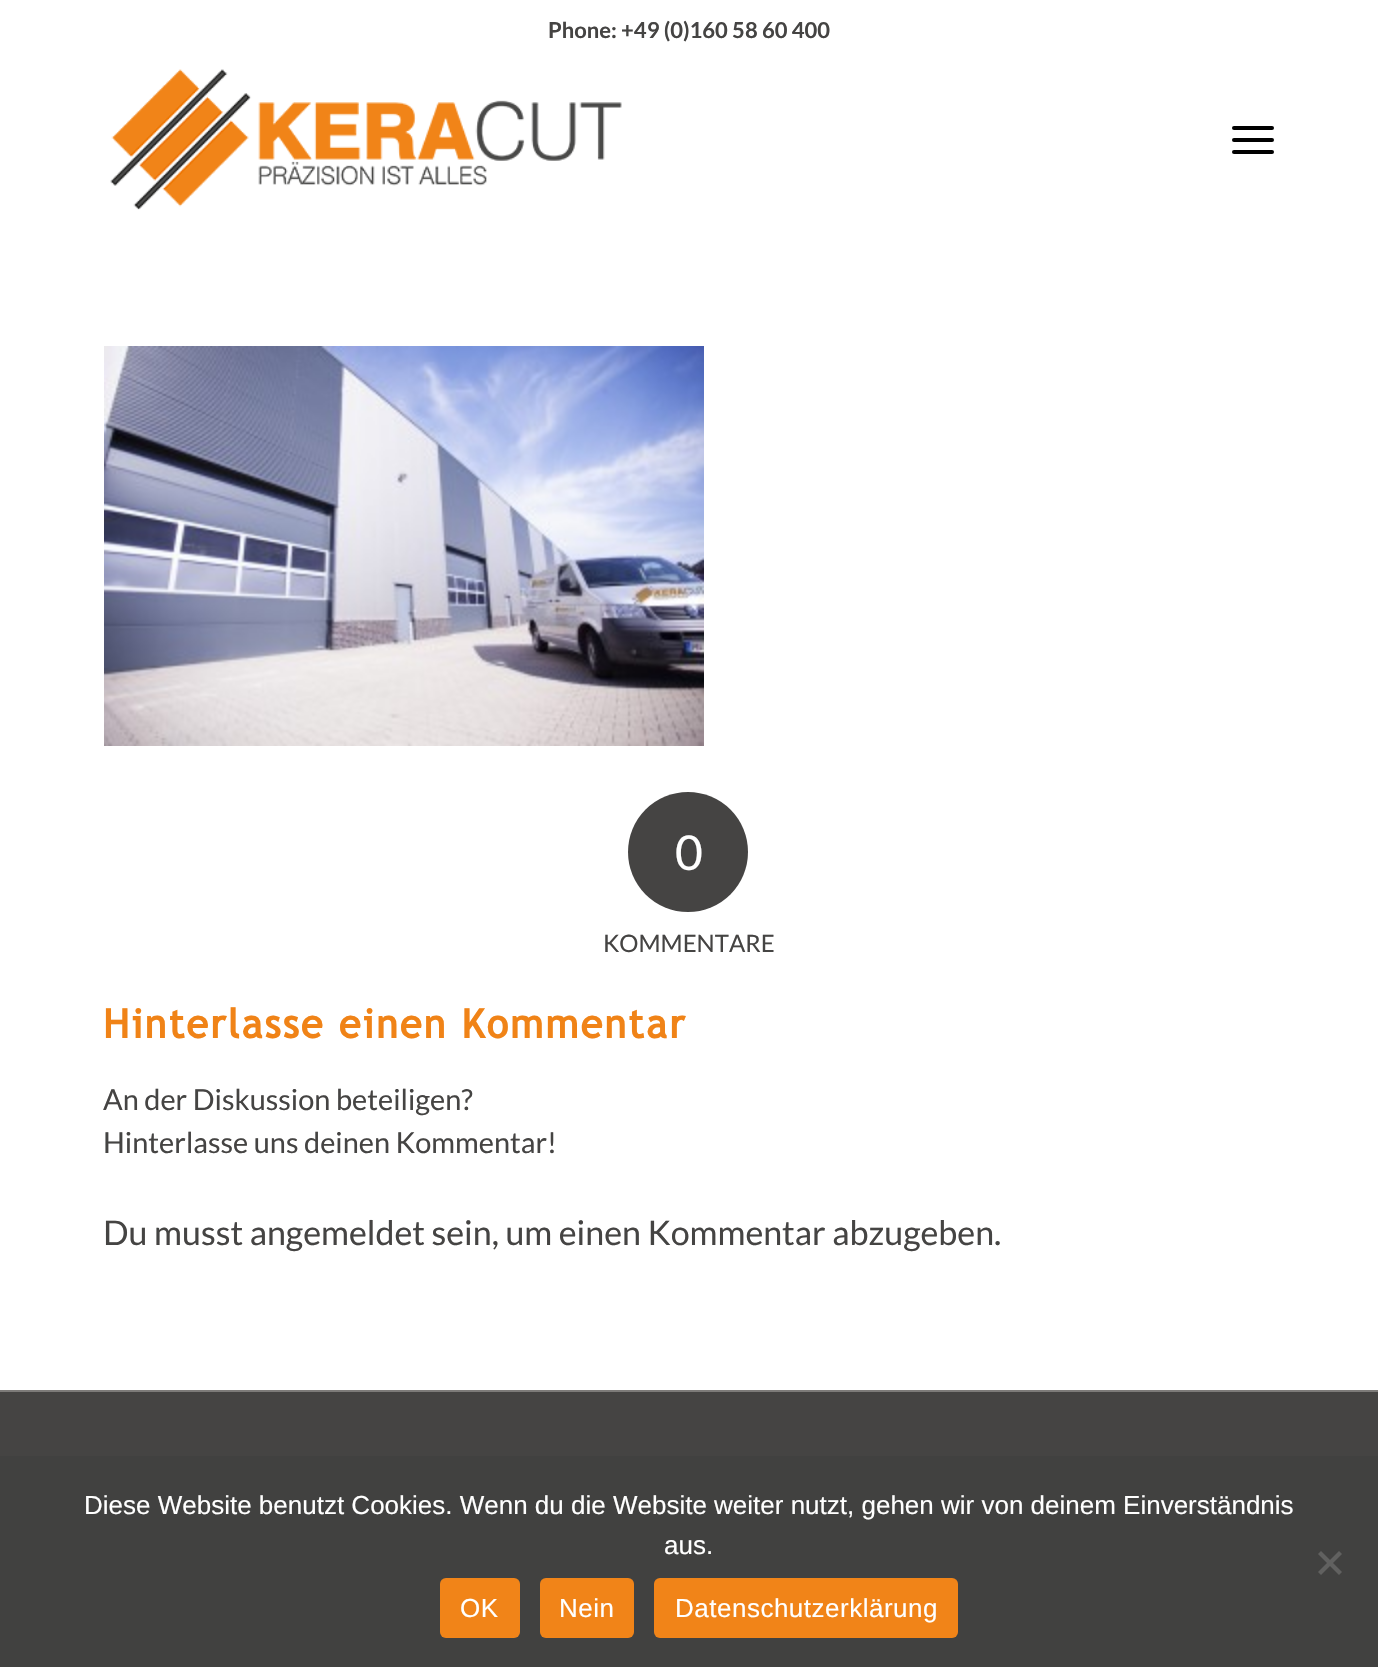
#include "include/core/SkBlurTypes.h"
#include "include/core/SkCanvas.h"
#include "include/core/SkData.h"
#include "include/core/SkFont.h"
#include "include/core/SkFontMgr.h"
#include "include/core/SkImage.h"
#include "include/core/SkMaskFilter.h"
#include "include/core/SkPaint.h"
#include "include/core/SkPathBuilder.h"
#include "include/core/SkTextBlob.h"
#include "include/effects/SkDashPathEffect.h"
#include "include/effects/SkGradientShader.h"
#include "include/utils/SkParsePath.h"

extern sk_sp<SkFontMgr> fontMgr;

void draw(SkCanvas* canvas) {
    SkPaint p;
    p.setAntiAlias(true);
    auto font = [&](const char* family, int weight, float size, bool italic = false) {
        SkFontStyle style(weight, SkFontStyle::kNormal_Width,
            italic ? SkFontStyle::kItalic_Slant : SkFontStyle::kUpright_Slant);
        SkFont result(fontMgr->matchFamilyStyle(family, style), size);
        result.setSubpixel(true);
        return result;
    };
    auto drawTracked = [&](const char* s, float x, float y, const SkFont& font, const SkPaint& ink, float letter, float word) {
        std::vector<SkGlyphID> glyphs(font.countText(s, strlen(s), SkTextEncoding::kUTF8));
        std::vector<float> xs(glyphs.size());
        font.textToGlyphs(s, strlen(s), SkTextEncoding::kUTF8, glyphs);
        font.getXPos(glyphs, xs, x);
        float extra = 0;
        for (size_t i = 0; i < glyphs.size(); i++) {
            xs[i] += extra;
            extra += letter + word * (glyphs[i] == font.unicharToGlyph(' '));
        }
        canvas->drawTextBlob(SkTextBlob::MakeFromPosHGlyphs(glyphs, xs, y, font), 0, 0, ink);
    };
    auto drawPhoto = [&](const char* path, float l, float t, float r, float b) {
        auto image = SkImages::DeferredFromEncodedData(SkData::MakeFromFileName(path));
        canvas->drawImageRect(image, SkRect::MakeLTRB(l, t, r, b), SkSamplingOptions());
    };
    canvas->clear(0xFFFFFFFF);
    auto font1 = font("Lato", 700, 22);
    p.setColor(0xFF454443);
    canvas->drawString("Phone: +49 (0)160 58 60 400", 548, 38, font1, p);
    drawPhoto("media/1.png", 110, 69, 622, 210);
    p.setColor(0xFF000000);
    canvas->drawRoundRect(SkRect::MakeLTRB(1232, 138, 1274, 142), 2, 2, p);
    canvas->drawRoundRect(SkRect::MakeLTRB(1232, 126, 1274, 130), 2, 2, p);
    canvas->drawRoundRect(SkRect::MakeLTRB(1232, 150, 1274, 154), 2, 2, p);
    drawPhoto("media/2.png", 104, 346, 704, 746);
    p.setColor(0xFF454443);
    canvas->drawCircle(688, 852, 60, p);
    auto font2 = font("Lato", 400, 48);
    p.setColor(0xFFFFFFFF);
    canvas->drawString("0", 675, 870, font2, p);
    auto font3 = font("Lato", 400, 24);
    p.setColor(0xFF454443);
    canvas->drawString("KOMMENTARE", 603, 952, font3, p);
    auto font4 = font("Trebuchet MS", 700, 40);
    p.setColor(0xFFF08317);
    drawTracked("Hinterlasse einen Kommentar", 103, 1038, font4, p, 2, 0);
    auto font5 = font("Lato", 400, 28.9f);
    p.setColor(0xFF454443);
    canvas->drawString("An der Diskussion beteiligen?", 103, 1110, font5, p);
    canvas->drawString("Hinterlasse uns deinen Kommentar!", 103, 1153, font5, p);
    auto font6 = font("Lato", 400, 34);
    canvas->drawString("Du musst angemeldet sein, um einen Kommentar abzugeben.", 103, 1245, font6, p);
    {
        const struct { float l, t, r, b; SkColor color; } items[] = {
            {0, 1392, 1378, 1456, 0xFF454443},
            {0, 1390, 1378, 1392, 0xFF7D7B79},
            {0, 1456, 1378, 1667, 0xFF414140},
        };
        for (auto [l, t, r, b, color] : items) {
            p.setColor(color);
            canvas->drawRect(SkRect::MakeLTRB(l, t, r, b), p);
        }
    }
    auto font7 = font("Liberation Sans", 400, 26);
    p.setColor(0xFFFFFFFF);
    canvas->drawString("Diese Website benutzt Cookies. Wenn du die Website weiter nutzt, gehen wir von deinem Einverständnis", 84, 1514, font7, p);
    canvas->drawString("aus.", 664, 1554, font7, p);
    p.setColor(0xFF616160);
    canvas->drawPath(SkPathBuilder().moveTo(1339, 1551).lineTo(1342, 1554).lineTo(1321, 1575).lineTo(1318, 1572).close().detach(), p);
    canvas->drawPath(SkPathBuilder().moveTo(1318, 1554).lineTo(1321, 1551).lineTo(1342, 1572).lineTo(1339, 1575).close().detach(), p);
    p.setColor(0xFFF18418);
    canvas->drawRoundRect(SkRect::MakeLTRB(440, 1578, 520, 1638), 6, 6, p);
    p.setColor(0xFFFFFFFF);
    drawTracked("OK", 460, 1617, font7, p, 0.5f, 0);
    p.setColor(0xFFF18418);
    canvas->drawRoundRect(SkRect::MakeLTRB(540, 1578, 634, 1638), 6, 6, p);
    p.setColor(0xFFFFFFFF);
    drawTracked("Nein", 559, 1617, font7, p, 0.5f, 0);
    p.setColor(0xFFF18418);
    canvas->drawRoundRect(SkRect::MakeLTRB(654, 1578, 958, 1638), 6, 6, p);
    p.setColor(0xFFFFFFFF);
    drawTracked("Datenschutzerklärung", 675, 1617, font7, p, 0.5f, 0);
}
